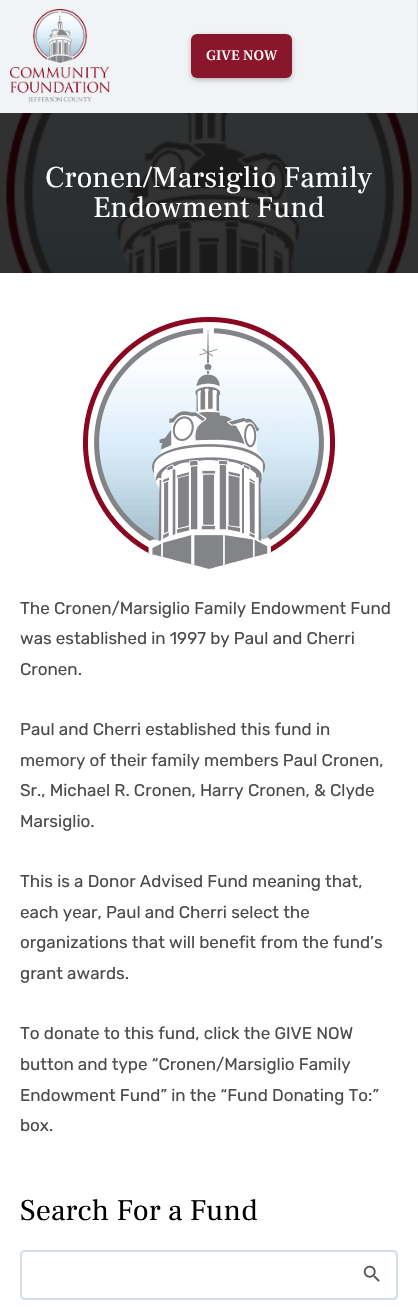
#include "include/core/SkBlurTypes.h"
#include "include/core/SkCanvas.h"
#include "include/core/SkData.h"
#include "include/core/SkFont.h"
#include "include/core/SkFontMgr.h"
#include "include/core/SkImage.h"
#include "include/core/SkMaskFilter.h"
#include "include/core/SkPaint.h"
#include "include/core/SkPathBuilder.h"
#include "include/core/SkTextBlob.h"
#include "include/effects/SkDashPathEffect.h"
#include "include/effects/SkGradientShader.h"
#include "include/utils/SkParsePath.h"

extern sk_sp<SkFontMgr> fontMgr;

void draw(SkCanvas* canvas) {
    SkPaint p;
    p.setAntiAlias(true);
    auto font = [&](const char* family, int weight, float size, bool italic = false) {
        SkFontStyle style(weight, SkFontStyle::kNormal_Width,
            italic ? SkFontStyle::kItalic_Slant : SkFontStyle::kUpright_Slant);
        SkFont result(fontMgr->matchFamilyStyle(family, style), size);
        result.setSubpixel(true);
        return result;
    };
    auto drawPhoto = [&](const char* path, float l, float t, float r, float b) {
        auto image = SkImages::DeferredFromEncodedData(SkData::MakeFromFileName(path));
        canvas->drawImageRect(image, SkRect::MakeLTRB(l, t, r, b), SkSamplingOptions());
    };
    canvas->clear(0xFFFFFFFF);
    p.setColor(0xFFF0F4F6);
    canvas->drawRect(SkRect::MakeLTRB(0, 0, 417, 113), p);
    p.setColor(0xFFE3E3E3);
    canvas->drawRect(SkRect::MakeLTRB(417, 0, 418, 113), p);
    drawPhoto("media/1.png", 10, 9, 110, 103);
    p.setColor(0x40000000);
    p.setMaskFilter(SkMaskFilter::MakeBlur(kNormal_SkBlurStyle, 2.5f));
    canvas->drawRoundRect(SkRect::MakeLTRB(191, 36, 292, 80), 6, 6, p);
    p.setMaskFilter(nullptr);
    p.setColor(0xFF89162A);
    canvas->drawRoundRect(SkRect::MakeLTRB(191, 34, 292, 78), 6, 6, p);
    auto font1 = font("Frank Ruhl Libre", 500, 14.5f);
    p.setColor(0xFFFFFFFF);
    canvas->drawString("GIVE NOW", 206, 60, font1, p);
    p.setColor(0xFF313131);
    canvas->drawRect(SkRect::MakeLTRB(0, 113, 418, 273), p);
    drawPhoto("media/2.png", 5, 113, 413, 273);
    auto font2 = font("Frank Ruhl Libre", 400, 30);
    p.setColor(0xFFFFFFFF);
    canvas->drawString("Cronen/Marsiglio Family", 45, 187, font2, p);
    canvas->drawString("Endowment Fund", 93, 217, font2, p);
    drawPhoto("media/3.png", 82, 317, 336, 569);
    auto font3 = font("Rubik", 300, 17);
    p.setColor(0xFF4A4B4D);
    {
        const struct { const char* s; float x, y; } items[] = {
            {"The Cronen/Marsiglio Family Endowment Fund", 20, 614},
            {"was established in 1997 by Paul and Cherri", 20, 644},
            {"Cronen.", 20, 675},
            {"Paul and Cherri established this fund in", 20, 735},
            {"memory of their family members Paul Cronen,", 20, 766},
            {"Sr., Michael R. Cronen, Harry Cronen, & Clyde", 20, 796},
            {"Marsiglio.", 20, 827},
            {"This is a Donor Advised Fund meaning that,", 20, 887},
            {"each year, Paul and Cherri select the", 20, 918},
            {"organizations that will benefit from the fund’s", 20, 948},
            {"grant awards.", 20, 979},
            {"To donate to this fund, click the GIVE NOW", 20, 1039},
            {"button and type “Cronen/Marsiglio Family", 20, 1070},
            {"Endowment Fund” in the “Fund Donating To:”", 20, 1101},
            {"box.", 20, 1131},
        };
        for (auto [s, x, y] : items) {
            canvas->drawString(s, x, y, font3, p);
        }
    }
    p.setColor(0xFF000000);
    canvas->drawString("Search For a Fund", 20, 1220, font2, p);
    p.setColor(0xFFD3DFE5);
    canvas->drawPath(SkPathBuilder(SkPathFillType::kEvenOdd).moveTo(25, 1250).lineTo(348, 1250).lineTo(348, 1300).lineTo(25, 1300).cubicTo(22, 1300, 20, 1298, 20, 1295).lineTo(20, 1255).cubicTo(20, 1252, 22, 1250, 25, 1250).close().moveTo(25, 1252).lineTo(348, 1252).lineTo(348, 1298).lineTo(25, 1298).cubicTo(23, 1298, 22, 1297, 22, 1295).lineTo(22, 1255).cubicTo(22, 1253, 23, 1252, 25, 1252).close().detach(), p);
    canvas->drawPath(SkPathBuilder(SkPathFillType::kEvenOdd).moveTo(348, 1250).lineTo(393, 1250).cubicTo(396, 1250, 398, 1252, 398, 1255).lineTo(398, 1295).cubicTo(398, 1298, 396, 1300, 393, 1300).lineTo(348, 1300).close().moveTo(348, 1252).lineTo(393, 1252).cubicTo(394, 1252, 396, 1254, 396, 1255).lineTo(396, 1295).cubicTo(396, 1296, 394, 1298, 393, 1298).lineTo(348, 1298).close().detach(), p);
    drawPhoto("media/4.png", 363, 1265, 380, 1282);
}
